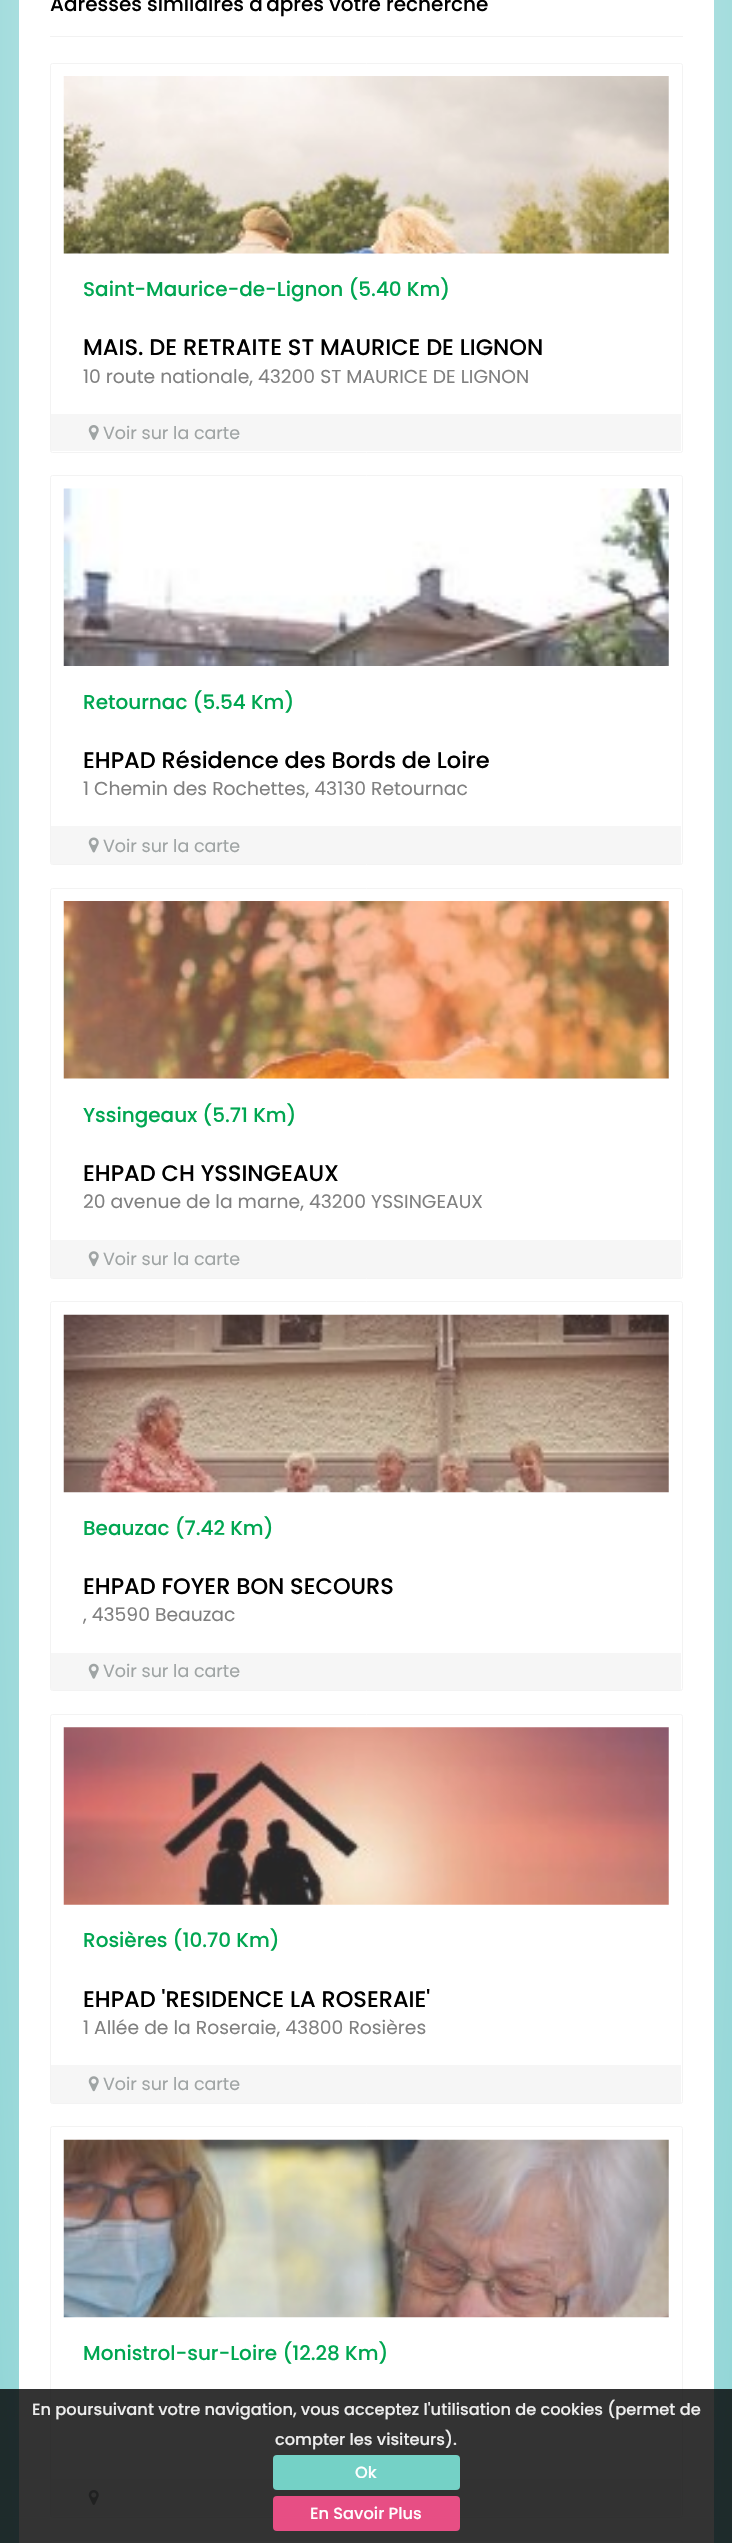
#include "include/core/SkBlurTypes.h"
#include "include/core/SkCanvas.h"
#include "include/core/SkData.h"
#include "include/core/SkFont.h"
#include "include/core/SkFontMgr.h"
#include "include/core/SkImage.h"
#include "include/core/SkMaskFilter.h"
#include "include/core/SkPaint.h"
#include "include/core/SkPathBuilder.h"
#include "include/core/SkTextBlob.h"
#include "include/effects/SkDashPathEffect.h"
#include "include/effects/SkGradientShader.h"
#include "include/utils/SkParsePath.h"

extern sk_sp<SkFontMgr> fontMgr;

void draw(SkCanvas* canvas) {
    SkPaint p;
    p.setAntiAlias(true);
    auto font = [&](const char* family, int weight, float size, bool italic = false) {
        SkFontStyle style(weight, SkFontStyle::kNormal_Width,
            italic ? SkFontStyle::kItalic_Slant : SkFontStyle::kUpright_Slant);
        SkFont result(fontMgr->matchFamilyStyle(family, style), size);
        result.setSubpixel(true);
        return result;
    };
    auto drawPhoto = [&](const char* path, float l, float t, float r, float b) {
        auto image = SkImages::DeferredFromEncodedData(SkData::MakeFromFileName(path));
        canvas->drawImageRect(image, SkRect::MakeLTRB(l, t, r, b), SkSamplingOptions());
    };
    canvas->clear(0xFFFFFFFF);
    {
        const SkColor colors[] = {0xFFFFFFFF, 0xFF7ECECF};
        const float stops[] = {0, 1};
        SkMatrix m = SkMatrix::Translate(366, -199).preScale(518, 5884);
        p.setShader(SkGradientShader::MakeRadial({0, 0}, 1, colors, stops, 2, SkTileMode::kClamp, 0, &m));
        p.setAlpha(255);
    }
    canvas->drawRect(SkRect::MakeLTRB(0, 0, 732, 2543), p);
    p.setShader(nullptr);
    p.setColor(0xFFFFFFFF);
    canvas->drawRect(SkRect::MakeLTRB(19, 0, 714, 2543), p);
    p.setColor(0xFFF2F2F2);
    canvas->drawRect(SkRect::MakeLTRB(50, 36, 683, 37), p);
    auto font1 = font("Poppins", 500, 20);
    p.setColor(0xFF000000);
    canvas->drawString("Adresses similaires d'après votre recherche", 50, 11, font1, p);
    p.setStyle(SkPaint::kStroke_Style);
    p.setStrokeWidth(1);
    p.setColor(0xFFF3F3F3);
    canvas->drawRoundRect(SkRect::MakeLTRB(50.5f, 63.5f, 682.5f, 452.5f), 2, 2, p);
    drawPhoto("media/1.png", 63, 76, 669, 254);
    p.setStyle(SkPaint::kFill_Style);
    p.setColor(0xFF00A651);
    canvas->drawString("Saint-Maurice-de-Lignon (5.40 Km)", 83, 296, font1, p);
    auto font2 = font("Poppins", 500, 22.5f);
    p.setColor(0xFF000000);
    canvas->drawString("MAIS. DE RETRAITE ST MAURICE DE LIGNON", 83, 355, font2, p);
    auto font3 = font("Poppins", 400, 18.75f);
    p.setColor(0xFF808080);
    canvas->drawString("10 route nationale, 43200 ST MAURICE DE LIGNON", 83, 383, font3, p);
    p.setColor(0xFFF6F6F6);
    canvas->drawRect(SkRect::MakeLTRB(51, 414, 681, 451), p);
    drawPhoto("media/2.png", 88, 425, 99, 440);
    auto font4 = font("Poppins", 400, 17.5f);
    p.setColor(0xFF9FA4A4);
    canvas->drawString("Voir sur la carte", 103, 439, font4, p);
    p.setStyle(SkPaint::kStroke_Style);
    p.setColor(0xFFF3F3F3);
    canvas->drawRoundRect(SkRect::MakeLTRB(50.5f, 475.5f, 682.5f, 864.5f), 2, 2, p);
    drawPhoto("media/3.png", 63, 488, 669, 666);
    p.setStyle(SkPaint::kFill_Style);
    p.setColor(0xFF00A651);
    canvas->drawString("Retournac (5.54 Km)", 83, 709, font1, p);
    p.setColor(0xFF000000);
    canvas->drawString("EHPAD Résidence des Bords de Loire", 83, 768, font2, p);
    p.setColor(0xFF808080);
    canvas->drawString("1 Chemin des Rochettes, 43130 Retournac", 83, 795, font3, p);
    p.setColor(0xFFF6F6F6);
    canvas->drawRect(SkRect::MakeLTRB(51, 826, 681, 864), p);
    drawPhoto("media/4.png", 88, 837, 99, 853);
    p.setColor(0xFF9FA4A4);
    canvas->drawString("Voir sur la carte", 103, 852, font4, p);
    p.setStyle(SkPaint::kStroke_Style);
    p.setColor(0xFFF3F3F3);
    canvas->drawRoundRect(SkRect::MakeLTRB(50.5f, 888.5f, 682.5f, 1278.5f), 2, 2, p);
    drawPhoto("media/5.png", 63, 901, 669, 1079);
    p.setStyle(SkPaint::kFill_Style);
    p.setColor(0xFF00A651);
    canvas->drawString("Yssingeaux (5.71 Km)", 83, 1122, font1, p);
    p.setColor(0xFF000000);
    canvas->drawString("EHPAD CH YSSINGEAUX", 83, 1181, font2, p);
    p.setColor(0xFF808080);
    canvas->drawString("20 avenue de la marne, 43200 YSSINGEAUX", 83, 1208, font3, p);
    p.setColor(0xFFF6F6F6);
    canvas->drawRect(SkRect::MakeLTRB(51, 1240, 681, 1278), p);
    drawPhoto("media/6.png", 88, 1251, 99, 1267);
    p.setColor(0xFF9FA4A4);
    canvas->drawString("Voir sur la carte", 103, 1265, font4, p);
    p.setStyle(SkPaint::kStroke_Style);
    p.setColor(0xFFF3F3F3);
    canvas->drawRoundRect(SkRect::MakeLTRB(50.5f, 1301.5f, 682.5f, 1690.5f), 2, 2, p);
    drawPhoto("media/7.png", 63, 1314, 669, 1493);
    p.setStyle(SkPaint::kFill_Style);
    p.setColor(0xFF00A651);
    canvas->drawString("Beauzac (7.42 Km)", 83, 1535, font1, p);
    p.setColor(0xFF000000);
    canvas->drawString("EHPAD FOYER BON SECOURS", 83, 1594, font2, p);
    p.setColor(0xFF808080);
    canvas->drawString(", 43590 Beauzac", 83, 1621, font3, p);
    p.setColor(0xFFF6F6F6);
    canvas->drawRect(SkRect::MakeLTRB(51, 1653, 681, 1690), p);
    drawPhoto("media/8.png", 88, 1663, 99, 1679);
    p.setColor(0xFF9FA4A4);
    canvas->drawString("Voir sur la carte", 103, 1677, font4, p);
    p.setStyle(SkPaint::kStroke_Style);
    p.setColor(0xFFF3F3F3);
    canvas->drawRoundRect(SkRect::MakeLTRB(50.5f, 1714.5f, 682.5f, 2103.5f), 2, 2, p);
    drawPhoto("media/9.png", 63, 1727, 669, 1905);
    p.setStyle(SkPaint::kFill_Style);
    p.setColor(0xFF00A651);
    canvas->drawString("Rosières (10.70 Km)", 83, 1947, font1, p);
    p.setColor(0xFF000000);
    canvas->drawString("EHPAD 'RESIDENCE LA ROSERAIE'", 83, 2007, font2, p);
    p.setColor(0xFF808080);
    canvas->drawString("1 Allée de la Roseraie, 43800 Rosières", 83, 2034, font3, p);
    p.setColor(0xFFF6F6F6);
    canvas->drawRect(SkRect::MakeLTRB(51, 2065, 681, 2103), p);
    drawPhoto("media/6.png", 88, 2076, 99, 2092);
    p.setColor(0xFF9FA4A4);
    canvas->drawString("Voir sur la carte", 103, 2090, font4, p);
    p.setStyle(SkPaint::kStroke_Style);
    p.setColor(0xFFF3F3F3);
    canvas->drawRoundRect(SkRect::MakeLTRB(50.5f, 2126.5f, 682.5f, 2517.5f), 2, 2, p);
    drawPhoto("media/10.png", 63, 2139, 669, 2318);
    p.setStyle(SkPaint::kFill_Style);
    p.setColor(0xFF00A651);
    canvas->drawString("Monistrol-sur-Loire (12.28 Km)", 83, 2360, font1, p);
    p.setColor(0xFFF6F6F6);
    canvas->drawRect(SkRect::MakeLTRB(51, 2479, 681, 2516), p);
    drawPhoto("media/2.png", 88, 2490, 99, 2505);
    p.setStyle(SkPaint::kStroke_Style);
    p.setColor(0xFFF3F3F3);
    canvas->drawRoundRect(SkRect::MakeLTRB(50.5f, 2540.5f, 682.5f, 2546.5f), 2, 2, p);
    p.setStyle(SkPaint::kFill_Style);
    p.setColor(0xCC000000);
    canvas->drawRect(SkRect::MakeLTRB(0, 2389, 732, 2543), p);
    auto font5 = font("Poppins", 500, 16.25f);
    p.setColor(0xFFEEEEEE);
    canvas->drawString("En poursuivant votre navigation, vous acceptez l'utilisation de cookies (permet de", 32, 2415, font5, p);
    canvas->drawString("compter les visiteurs).", 275, 2445, font5, p);
    p.setColor(0xFF74D1C6);
    canvas->drawRoundRect(SkRect::MakeLTRB(273, 2455, 460, 2490), 4, 4, p);
    p.setColor(0xFFFFFFFF);
    canvas->drawString("Ok", 355, 2478, font5, p);
    p.setColor(0xFFE74E84);
    canvas->drawRoundRect(SkRect::MakeLTRB(273, 2496, 460, 2531), 4, 4, p);
    p.setColor(0xFFFFFFFF);
    canvas->drawString("En Savoir Plus", 310, 2519, font5, p);
}
